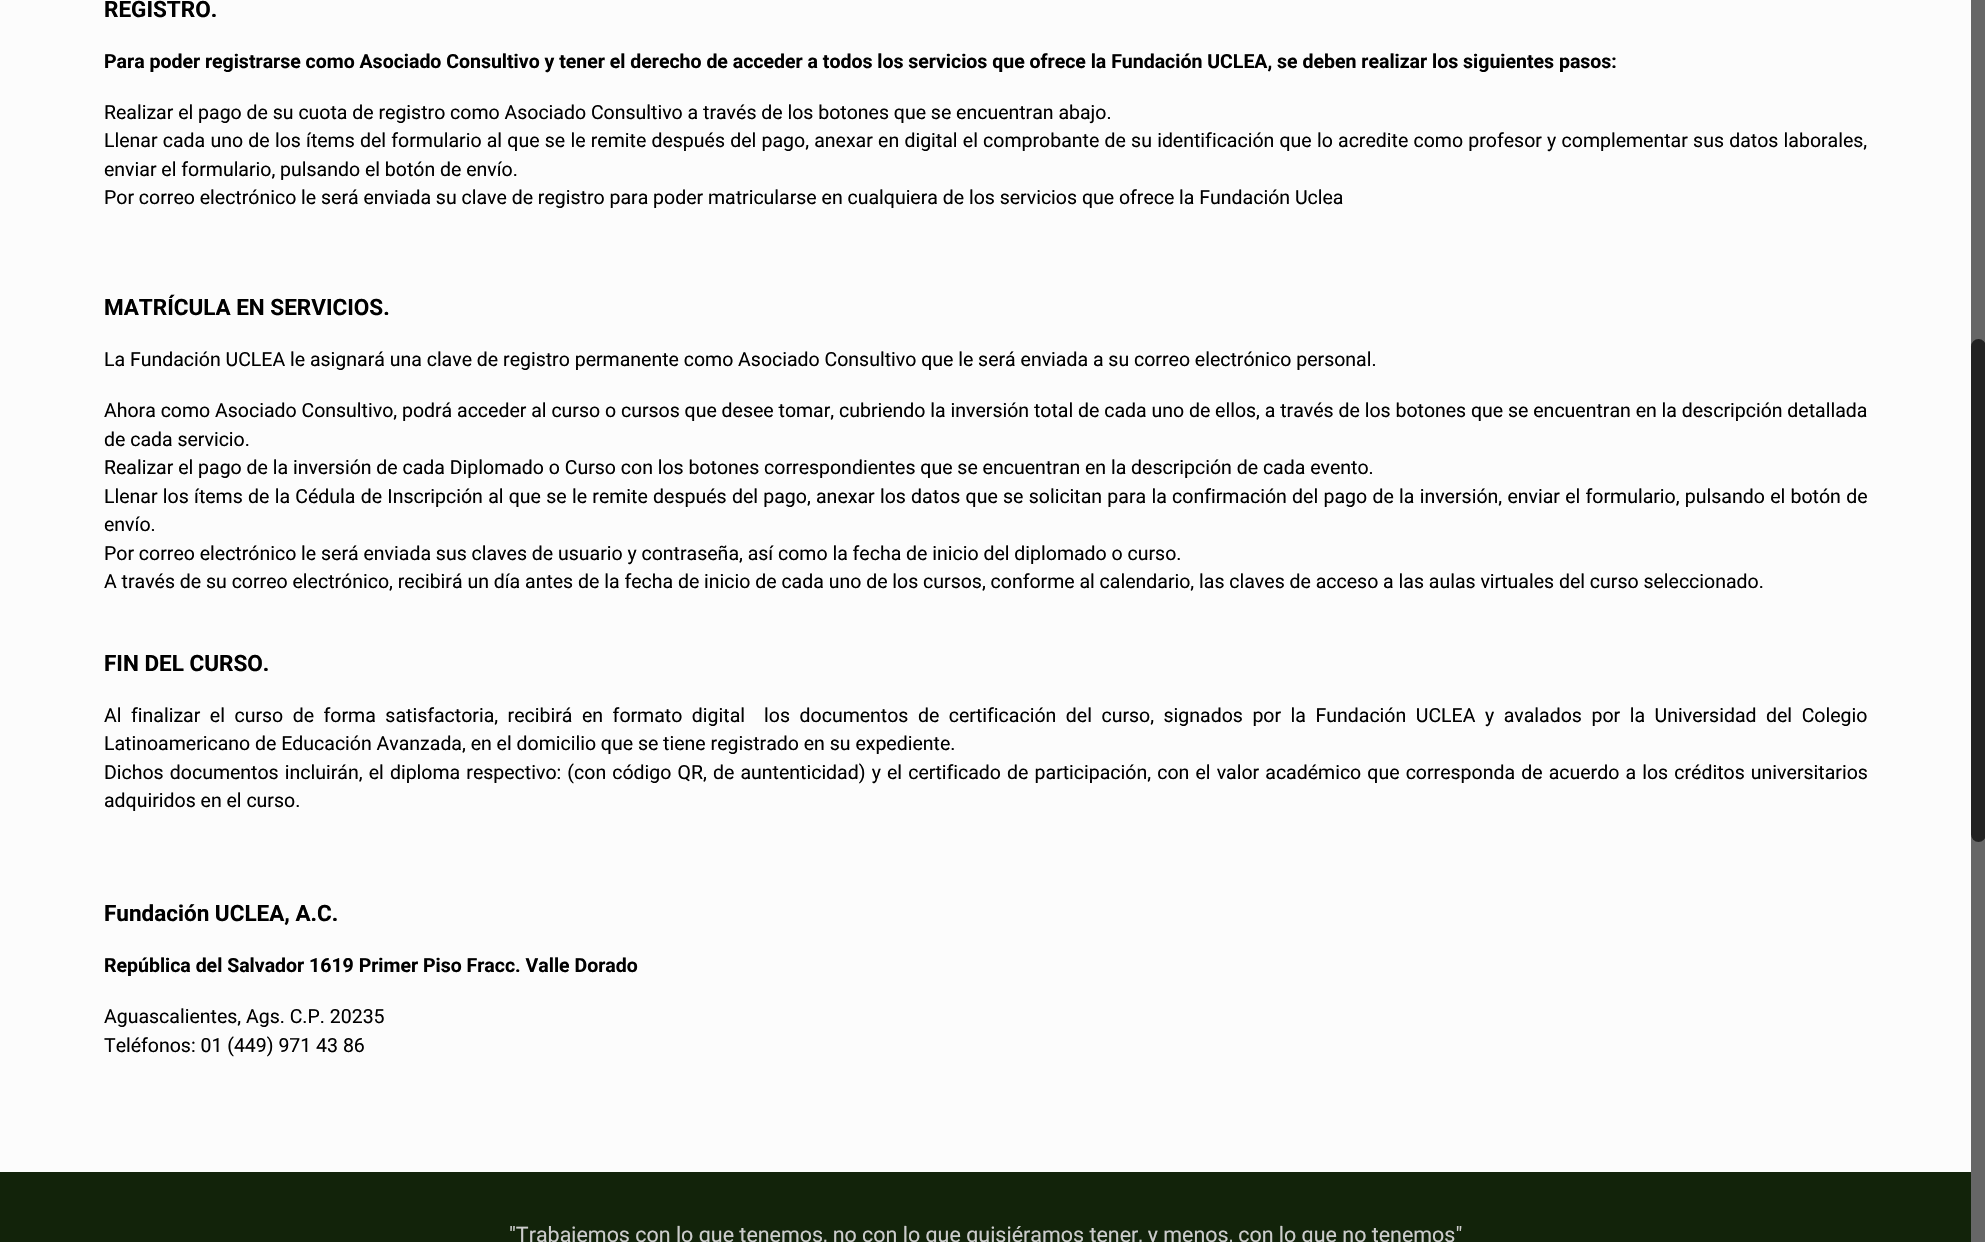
#include "include/core/SkBlurTypes.h"
#include "include/core/SkCanvas.h"
#include "include/core/SkData.h"
#include "include/core/SkFont.h"
#include "include/core/SkFontMgr.h"
#include "include/core/SkImage.h"
#include "include/core/SkMaskFilter.h"
#include "include/core/SkPaint.h"
#include "include/core/SkPathBuilder.h"
#include "include/core/SkTextBlob.h"
#include "include/effects/SkDashPathEffect.h"
#include "include/effects/SkGradientShader.h"
#include "include/utils/SkParsePath.h"

extern sk_sp<SkFontMgr> fontMgr;

void draw(SkCanvas* canvas) {
    SkPaint p;
    p.setAntiAlias(true);
    auto font = [&](const char* family, int weight, float size, bool italic = false) {
        SkFontStyle style(weight, SkFontStyle::kNormal_Width,
            italic ? SkFontStyle::kItalic_Slant : SkFontStyle::kUpright_Slant);
        SkFont result(fontMgr->matchFamilyStyle(family, style), size);
        result.setSubpixel(true);
        return result;
    };
    auto drawTracked = [&](const char* s, float x, float y, const SkFont& font, const SkPaint& ink, float letter, float word) {
        std::vector<SkGlyphID> glyphs(font.countText(s, strlen(s), SkTextEncoding::kUTF8));
        std::vector<float> xs(glyphs.size());
        font.textToGlyphs(s, strlen(s), SkTextEncoding::kUTF8, glyphs);
        font.getXPos(glyphs, xs, x);
        float extra = 0;
        for (size_t i = 0; i < glyphs.size(); i++) {
            xs[i] += extra;
            extra += letter + word * (glyphs[i] == font.unicharToGlyph(' '));
        }
        canvas->drawTextBlob(SkTextBlob::MakeFromPosHGlyphs(glyphs, xs, y, font), 0, 0, ink);
    };
    canvas->clear(0xFFFCFCFC);
    auto font1 = font("Roboto", 700, 22.5f);
    p.setColor(0xFF000000);
    canvas->drawString("REGISTRO.", 104, 17, font1, p);
    auto font2 = font("Roboto", 700, 19.5f);
    canvas->drawString("Para poder registrarse como Asociado Consultivo y tener el derecho de acceder a todos los servicios que ofrece la Fundación UCLEA, se deben realizar los siguientes pasos:", 104, 68, font2, p);
    auto font3 = font("Roboto", 400, 19.5f);
    canvas->drawString("Realizar el pago de su cuota de registro como Asociado Consultivo a través de los botones que se encuentran abajo.", 104, 119, font3, p);
    drawTracked("Llenar cada uno de los ítems del formulario al que se le remite después del pago, anexar en digital el comprobante de su identificación que lo acredite como profesor y complementar sus datos laborales,", 104, 147, font3, p, 0, 0.4f);
    canvas->drawString("enviar el formulario, pulsando el botón de envío.", 104, 176, font3, p);
    canvas->drawString("Por correo electrónico le será enviada su clave de registro para poder matricularse en cualquiera de los servicios que ofrece la Fundación Uclea", 104, 204, font3, p);
    canvas->drawString("MATRÍCULA EN SERVICIOS.", 104, 315, font1, p);
    {
        const struct { const char* s; float x, y; } items[] = {
            {"La Fundación UCLEA le asignará una clave de registro permanente como Asociado Consultivo que le será enviada a su correo electrónico personal.", 104, 366},
            {"Ahora como Asociado Consultivo, podrá acceder al curso o cursos que desee tomar, cubriendo la inversión total de cada uno de ellos, a través de los botones que se encuentran en la descripción detallada", 104, 417},
            {"de cada servicio.", 104, 446},
            {"Realizar el pago de la inversión de cada Diplomado o Curso con los botones correspondientes que se encuentran en la descripción de cada evento.", 104, 474},
        };
        for (auto [s, x, y] : items) {
            canvas->drawString(s, x, y, font3, p);
        }
    }
    drawTracked("Llenar los ítems de la Cédula de Inscripción al que se le remite después del pago, anexar los datos que se solicitan para la confirmación del pago de la inversión, enviar el formulario, pulsando el botón de", 104, 503, font3, p, 0, 0.45f);
    {
        const struct { const char* s; float x, y; } items[] = {
            {"envío.", 104, 531},
            {"Por correo electrónico le será enviada sus claves de usuario y contraseña, así como la fecha de inicio del diplomado o curso.", 104, 560},
            {"A través de su correo electrónico, recibirá un día antes de la fecha de inicio de cada uno de los cursos, conforme al calendario, las claves de acceso a las aulas virtuales del curso seleccionado.", 104, 588},
        };
        for (auto [s, x, y] : items) {
            canvas->drawString(s, x, y, font3, p);
        }
    }
    canvas->drawString("FIN DEL CURSO.", 104, 671, font1, p);
    drawTracked("Al finalizar el curso de forma satisfactoria, recibirá en formato digital  los documentos de certificación del curso, signados por la Fundación UCLEA y avalados por la Universidad del Colegio", 104, 722, font3, p, 0, 4.7f);
    canvas->drawString("Latinoamericano de Educación Avanzada, en el domicilio que se tiene registrado en su expediente.", 104, 750, font3, p);
    drawTracked("Dichos documentos incluirán, el diploma respectivo: (con código QR, de auntenticidad) y el certificado de participación, con el valor académico que corresponda de acuerdo a los créditos universitarios", 104, 779, font3, p, 0, 1.3f);
    canvas->drawString("adquiridos en el curso.", 104, 807, font3, p);
    canvas->drawString("Fundación UCLEA, A.C.", 104, 921, font1, p);
    canvas->drawString("República del Salvador 1619 Primer Piso Fracc. Valle Dorado", 104, 972, font2, p);
    canvas->drawString("Aguascalientes, Ags. C.P. 20235", 104, 1023, font3, p);
    canvas->drawString("Teléfonos: 01 (449) 971 43 86", 104, 1052, font3, p);
    p.setColor(0xFF12230A);
    canvas->drawRect(SkRect::MakeLTRB(0, 1172, 1971, 1242), p);
    auto font4 = font("Roboto", 400, 21.45f);
    p.setColor(0xFFCCCCCC);
    canvas->drawString("\"Trabajemos con lo que tenemos, no con lo que quisiéramos tener, y menos, con lo que no tenemos\"", 509, 1242, font4, p);
    p.setColor(0xFF666666);
    canvas->drawRect(SkRect::MakeLTRB(1971, 0, 1985, 1242), p);
    p.setColor(0xFF222222);
    canvas->drawRoundRect(SkRect::MakeLTRB(1971, 339, 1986, 842), 7.5f, 7.5f, p);
}
